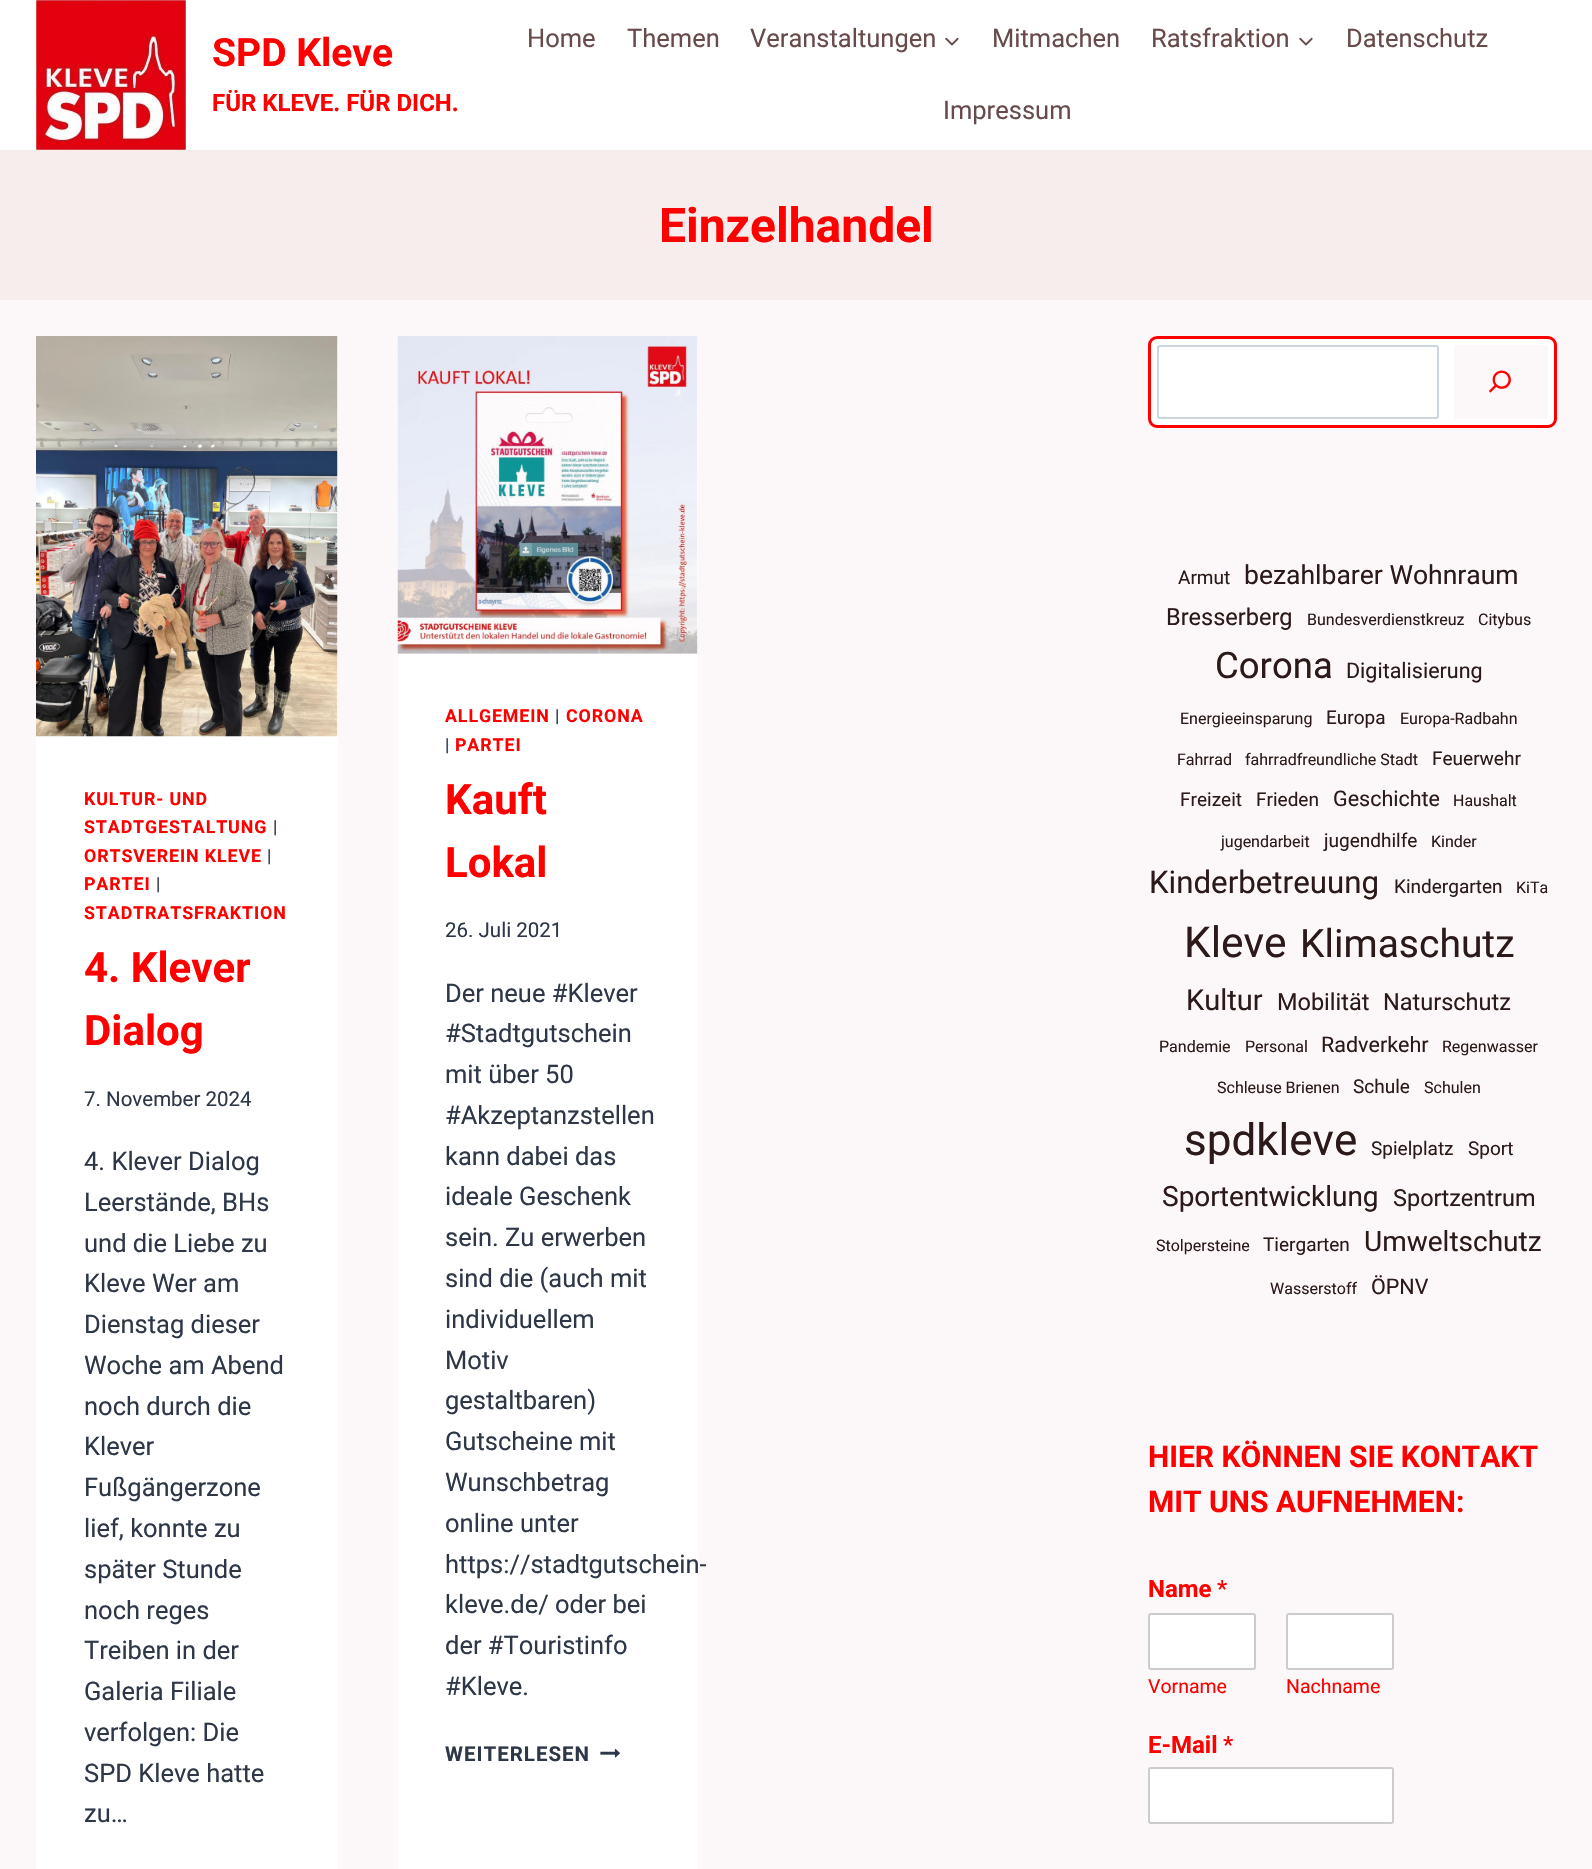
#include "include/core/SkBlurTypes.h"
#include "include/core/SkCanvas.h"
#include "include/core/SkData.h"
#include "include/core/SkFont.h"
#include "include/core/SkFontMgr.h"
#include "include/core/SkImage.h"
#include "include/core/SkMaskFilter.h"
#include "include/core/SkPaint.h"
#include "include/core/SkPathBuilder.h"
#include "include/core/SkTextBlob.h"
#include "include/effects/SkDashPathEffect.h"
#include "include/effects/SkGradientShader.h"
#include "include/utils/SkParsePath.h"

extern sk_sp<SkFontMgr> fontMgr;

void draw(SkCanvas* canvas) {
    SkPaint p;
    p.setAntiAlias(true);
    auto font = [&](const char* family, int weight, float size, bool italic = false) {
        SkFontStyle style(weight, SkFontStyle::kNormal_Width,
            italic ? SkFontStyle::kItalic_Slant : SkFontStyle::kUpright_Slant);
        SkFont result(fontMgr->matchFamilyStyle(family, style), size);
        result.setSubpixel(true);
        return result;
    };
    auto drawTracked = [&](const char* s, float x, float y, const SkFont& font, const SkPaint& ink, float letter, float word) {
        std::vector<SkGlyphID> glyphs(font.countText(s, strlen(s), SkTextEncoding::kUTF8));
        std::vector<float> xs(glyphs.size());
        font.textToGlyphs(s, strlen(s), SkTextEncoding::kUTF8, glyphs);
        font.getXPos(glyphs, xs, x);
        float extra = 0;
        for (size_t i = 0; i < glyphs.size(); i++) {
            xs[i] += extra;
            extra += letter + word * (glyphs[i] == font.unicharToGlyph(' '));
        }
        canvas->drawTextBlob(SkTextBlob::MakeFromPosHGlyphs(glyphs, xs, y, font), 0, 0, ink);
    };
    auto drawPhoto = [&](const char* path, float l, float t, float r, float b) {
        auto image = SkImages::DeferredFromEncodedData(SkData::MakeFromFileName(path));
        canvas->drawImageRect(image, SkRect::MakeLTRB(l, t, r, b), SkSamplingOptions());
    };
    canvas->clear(0xFFFCF7F8);
    p.setColor(0xFFFFFFFF);
    canvas->drawRect(SkRect::MakeLTRB(0, 0, 1592, 150), p);
    drawPhoto("media/1.png", 36, 0, 186, 150);
    auto font1 = font("Roboto", 700, 39);
    p.setColor(0xFFFF0000);
    canvas->drawString("SPD Kleve", 212, 66, font1, p);
    auto font2 = font("Roboto", 700, 24);
    canvas->drawString("FÜR KLEVE. FÜR DICH.", 212, 111, font2, p);
    auto font3 = font("Roboto", 400, 25.5f);
    p.setColor(0xFF684A4A);
    {
        const struct { const char* s; float x, y; } items[] = {
            {"Home", 527, 47},
            {"Themen", 627, 47},
            {"Veranstaltungen", 750, 47},
        };
        for (auto [s, x, y] : items) {
            canvas->drawString(s, x, y, font3, p);
        }
    }
    drawPhoto("media/2.png", 945, 37, 959, 46);
    canvas->drawString("Mitmachen", 992, 47, font3, p);
    canvas->drawString("Ratsfraktion", 1151, 47, font3, p);
    drawPhoto("media/2.png", 1299, 37, 1313, 46);
    canvas->drawString("Datenschutz", 1346, 47, font3, p);
    canvas->drawString("Impressum", 943, 119, font3, p);
    p.setColor(0xFFF7EDED);
    canvas->drawRect(SkRect::MakeLTRB(0, 150, 1592, 300), p);
    auto font4 = font("Roboto", 700, 48);
    p.setColor(0xFFFF0000);
    canvas->drawString("Einzelhandel", 659, 242, font4, p);
    p.setColor(0xFFFFFFFF);
    canvas->drawRoundRect(SkRect::MakeLTRB(36, 336, 338, 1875), 6, 6, p);
    drawPhoto("media/3.png", 36, 336, 338, 737);
    auto font5 = font("Roboto", 700, 17.8f);
    p.setColor(0xFFFF0000);
    drawTracked("KULTUR- UND", 84, 805, font5, p, 0.9f, 0);
    drawTracked("STADTGESTALTUNG", 84, 833, font5, p, 0.9f, 0);
    auto font6 = font("Roboto", 400, 17.8f);
    p.setColor(0xFF2D3748);
    drawTracked("|", 273, 833, font6, p, 0.9f, 0);
    p.setColor(0xFFFF0000);
    drawTracked("ORTSVEREIN KLEVE", 84, 862, font5, p, 0.9f, 0);
    p.setColor(0xFF2D3748);
    drawTracked("|", 267, 862, font6, p, 0.9f, 0);
    p.setColor(0xFFFF0000);
    drawTracked("PARTEI", 84, 890, font5, p, 0.9f, 0);
    p.setColor(0xFF2D3748);
    drawTracked("|", 156, 890, font6, p, 0.9f, 0);
    p.setColor(0xFFFF0000);
    drawTracked("STADTRATSFRAKTION", 84, 919, font5, p, 0.9f, 0);
    auto font7 = font("Roboto", 700, 42);
    canvas->drawString("4. Klever", 84, 982, font7, p);
    canvas->drawString("Dialog", 84, 1045, font7, p);
    auto font8 = font("Roboto", 400, 20.5f);
    p.setColor(0xFF2D3748);
    canvas->drawString("7. November 2024", 84, 1106, font8, p);
    {
        const struct { const char* s; float x, y; } items[] = {
            {"4. Klever Dialog", 84, 1170},
            {"Leerstände, BHs", 84, 1211},
            {"und die Liebe zu", 84, 1252},
            {"Kleve Wer am", 84, 1292},
            {"Dienstag dieser", 84, 1333},
            {"Woche am Abend", 84, 1374},
            {"noch durch die", 84, 1415},
            {"Klever", 84, 1455},
            {"Fußgängerzone", 84, 1496},
            {"lief, konnte zu", 84, 1537},
            {"später Stunde", 84, 1578},
            {"noch reges", 84, 1619},
            {"Treiben in der", 84, 1659},
            {"Galeria Filiale", 84, 1700},
            {"verfolgen: Die", 84, 1741},
            {"SPD Kleve hatte", 84, 1782},
            {"zu…", 84, 1822},
        };
        for (auto [s, x, y] : items) {
            canvas->drawString(s, x, y, font3, p);
        }
    }
    p.setColor(0xFFFFFFFF);
    canvas->drawRoundRect(SkRect::MakeLTRB(398, 336, 698, 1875), 6, 6, p);
    drawPhoto("media/4.png", 397, 336, 698, 654);
    p.setColor(0xFFFF0000);
    drawTracked("ALLGEMEIN", 445, 722, font5, p, 0.9f, 0);
    p.setColor(0xFF2D3748);
    drawTracked("|", 555, 722, font6, p, 0.9f, 0);
    p.setColor(0xFFFF0000);
    drawTracked("CORONA", 566, 722, font5, p, 0.9f, 0);
    p.setColor(0xFF2D3748);
    drawTracked("|", 445, 751, font6, p, 0.9f, 0);
    p.setColor(0xFFFF0000);
    drawTracked("PARTEI", 455, 751, font5, p, 0.9f, 0);
    canvas->drawString("Kauft", 445, 814, font7, p);
    canvas->drawString("Lokal", 445, 877, font7, p);
    p.setColor(0xFF2D3748);
    canvas->drawString("26. Juli 2021", 445, 937, font8, p);
    {
        const struct { const char* s; float x, y; } items[] = {
            {"Der neue #Klever", 445, 1002},
            {"#Stadtgutschein", 445, 1042},
            {"mit über 50", 445, 1083},
            {"#Akzeptanzstellen", 445, 1124},
            {"kann dabei das", 445, 1165},
            {"ideale Geschenk", 445, 1205},
            {"sein. Zu erwerben", 445, 1246},
            {"sind die (auch mit", 445, 1287},
            {"individuellem", 445, 1328},
            {"Motiv", 445, 1369},
            {"gestaltbaren)", 445, 1409},
            {"Gutscheine mit", 445, 1450},
            {"Wunschbetrag", 445, 1491},
            {"online unter", 445, 1532},
            {"https://stadtgutschein-", 445, 1573},
            {"kleve.de/ oder bei", 445, 1613},
            {"der #Touristinfo", 445, 1654},
            {"#Kleve.", 445, 1695},
        };
        for (auto [s, x, y] : items) {
            canvas->drawString(s, x, y, font3, p);
        }
    }
    auto font9 = font("Roboto", 700, 20.5f);
    drawTracked("WEITERLESEN", 445, 1761, font9, p, 1, 0);
    drawPhoto("media/5.png", 600, 1748, 620, 1758);
    p.setColor(0xFFFFFFFF);
    canvas->drawRoundRect(SkRect::MakeLTRB(1149.5f, 337.5f, 1555.5f, 426.5f), 7.5f, 7.5f, p);
    p.setStyle(SkPaint::kStroke_Style);
    p.setStrokeWidth(3);
    p.setColor(0xFFFF0000);
    canvas->drawRoundRect(SkRect::MakeLTRB(1149.5f, 337.5f, 1555.5f, 426.5f), 7.5f, 7.5f, p);
    p.setStrokeWidth(2);
    p.setColor(0xFFCBD5E0);
    canvas->drawRoundRect(SkRect::MakeLTRB(1158, 346, 1438, 418), 2, 2, p);
    p.setStyle(SkPaint::kFill_Style);
    p.setColor(0xFFFCF7F8);
    canvas->drawRoundRect(SkRect::MakeLTRB(1454, 345, 1548, 419), 3, 3, p);
    drawPhoto("media/6.png", 1489, 370, 1511, 393);
    auto font10 = font("Roboto", 400, 19);
    p.setColor(0xFF2C1A1A);
    canvas->drawString("Armut", 1178, 584, font10, p);
    auto font11 = font("Roboto", 400, 26.5f);
    canvas->drawString("bezahlbarer Wohnraum", 1244, 584, font11, p);
    auto font12 = font("Roboto", 400, 23.5f);
    canvas->drawString("Bresserberg", 1166, 625, font12, p);
    auto font13 = font("Roboto", 400, 16);
    canvas->drawString("Bundesverdienstkreuz", 1307, 625, font13, p);
    canvas->drawString("Citybus", 1478, 625, font13, p);
    auto font14 = font("Roboto", 400, 36.5f);
    canvas->drawString("Corona", 1215, 678, font14, p);
    auto font15 = font("Roboto", 400, 21.5f);
    canvas->drawString("Digitalisierung", 1346, 678, font15, p);
    canvas->drawString("Energieeinsparung", 1180, 724, font13, p);
    canvas->drawString("Europa", 1326, 724, font10, p);
    {
        const struct { const char* s; float x, y; } items[] = {
            {"Europa-Radbahn", 1400, 724},
            {"Fahrrad", 1177, 765},
            {"fahrradfreundliche Stadt", 1245, 765},
        };
        for (auto [s, x, y] : items) {
            canvas->drawString(s, x, y, font13, p);
        }
    }
    {
        const struct { const char* s; float x, y; } items[] = {
            {"Feuerwehr", 1432, 765},
            {"Freizeit", 1180, 806},
            {"Frieden", 1256, 806},
        };
        for (auto [s, x, y] : items) {
            canvas->drawString(s, x, y, font10, p);
        }
    }
    canvas->drawString("Geschichte", 1333, 806, font15, p);
    canvas->drawString("Haushalt", 1453, 806, font13, p);
    canvas->drawString("jugendarbeit", 1221, 847, font13, p);
    canvas->drawString("jugendhilfe", 1324, 847, font10, p);
    canvas->drawString("Kinder", 1431, 847, font13, p);
    auto font16 = font("Roboto", 400, 31.25f);
    canvas->drawString("Kinderbetreuung", 1149, 893, font16, p);
    canvas->drawString("Kindergarten", 1394, 893, font10, p);
    canvas->drawString("KiTa", 1516, 893, font13, p);
    auto font17 = font("Roboto", 400, 42.5f);
    canvas->drawString("Kleve", 1184, 957, font17, p);
    auto font18 = font("Roboto", 400, 39);
    canvas->drawString("Klimaschutz", 1300, 957, font18, p);
    auto font19 = font("Roboto", 400, 29);
    canvas->drawString("Kultur", 1186, 1010, font19, p);
    canvas->drawString("Mobilität", 1277, 1010, font12, p);
    canvas->drawString("Naturschutz", 1383, 1010, font12, p);
    canvas->drawString("Pandemie", 1159, 1052, font13, p);
    canvas->drawString("Personal", 1245, 1052, font13, p);
    canvas->drawString("Radverkehr", 1321, 1052, font15, p);
    canvas->drawString("Regenwasser", 1442, 1052, font13, p);
    canvas->drawString("Schleuse Brienen", 1217, 1093, font13, p);
    canvas->drawString("Schule", 1353, 1093, font10, p);
    canvas->drawString("Schulen", 1424, 1093, font13, p);
    auto font20 = font("Roboto", 400, 44);
    canvas->drawString("spdkleve", 1184, 1155, font20, p);
    canvas->drawString("Spielplatz", 1371, 1155, font10, p);
    canvas->drawString("Sport", 1468, 1155, font10, p);
    auto font21 = font("Roboto", 400, 28);
    canvas->drawString("Sportentwicklung", 1162, 1206, font21, p);
    canvas->drawString("Sportzentrum", 1393, 1206, font12, p);
    canvas->drawString("Stolpersteine", 1156, 1251, font13, p);
    canvas->drawString("Tiergarten", 1263, 1251, font10, p);
    canvas->drawString("Umweltschutz", 1364, 1251, font21, p);
    canvas->drawString("Wasserstoff", 1270, 1294, font13, p);
    canvas->drawString("ÖPNV", 1371, 1294, font15, p);
    auto font22 = font("Roboto", 700, 30);
    p.setColor(0xFFFF0000);
    canvas->drawString("HIER KÖNNEN SIE KONTAKT", 1148, 1467, font22, p);
    canvas->drawString("MIT UNS AUFNEHMEN:", 1148, 1512, font22, p);
    canvas->drawString("Name", 1148, 1597, font2, p);
    auto font23 = font("Roboto", 400, 24);
    canvas->drawString("*", 1217, 1597, font23, p);
    p.setColor(0xFFFFFFFF);
    canvas->drawRoundRect(SkRect::MakeLTRB(1149, 1614, 1255, 1669), 2, 2, p);
    p.setStyle(SkPaint::kStroke_Style);
    p.setColor(0xFFCCCCCC);
    canvas->drawRoundRect(SkRect::MakeLTRB(1149, 1614, 1255, 1669), 2, 2, p);
    auto font24 = font("Roboto", 400, 19.5f);
    p.setStyle(SkPaint::kFill_Style);
    p.setColor(0xFFFF0000);
    canvas->drawString("Vorname", 1148, 1693, font24, p);
    p.setColor(0xFFFFFFFF);
    canvas->drawRoundRect(SkRect::MakeLTRB(1287, 1614, 1393, 1669), 2, 2, p);
    p.setStyle(SkPaint::kStroke_Style);
    p.setColor(0xFFCCCCCC);
    canvas->drawRoundRect(SkRect::MakeLTRB(1287, 1614, 1393, 1669), 2, 2, p);
    p.setStyle(SkPaint::kFill_Style);
    p.setColor(0xFFFF0000);
    canvas->drawString("Nachname", 1286, 1693, font24, p);
    canvas->drawString("E-Mail", 1148, 1753, font2, p);
    canvas->drawString("*", 1223, 1753, font23, p);
    p.setColor(0xFFFFFFFF);
    canvas->drawRoundRect(SkRect::MakeLTRB(1149, 1768, 1393, 1823), 2, 2, p);
    p.setStyle(SkPaint::kStroke_Style);
    p.setColor(0xFFCCCCCC);
    canvas->drawRoundRect(SkRect::MakeLTRB(1149, 1768, 1393, 1823), 2, 2, p);
}
